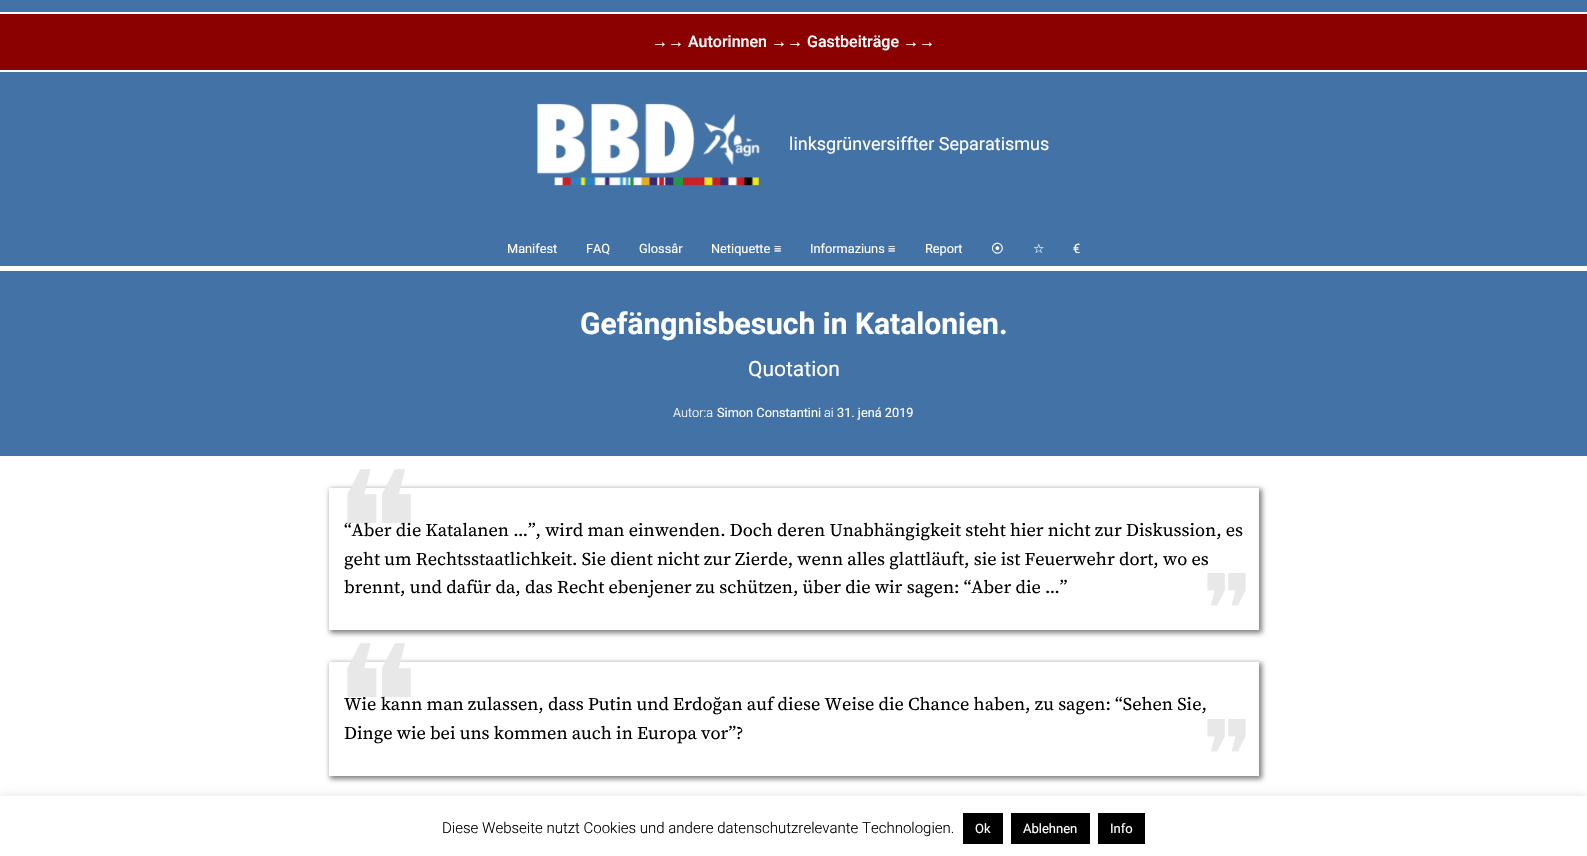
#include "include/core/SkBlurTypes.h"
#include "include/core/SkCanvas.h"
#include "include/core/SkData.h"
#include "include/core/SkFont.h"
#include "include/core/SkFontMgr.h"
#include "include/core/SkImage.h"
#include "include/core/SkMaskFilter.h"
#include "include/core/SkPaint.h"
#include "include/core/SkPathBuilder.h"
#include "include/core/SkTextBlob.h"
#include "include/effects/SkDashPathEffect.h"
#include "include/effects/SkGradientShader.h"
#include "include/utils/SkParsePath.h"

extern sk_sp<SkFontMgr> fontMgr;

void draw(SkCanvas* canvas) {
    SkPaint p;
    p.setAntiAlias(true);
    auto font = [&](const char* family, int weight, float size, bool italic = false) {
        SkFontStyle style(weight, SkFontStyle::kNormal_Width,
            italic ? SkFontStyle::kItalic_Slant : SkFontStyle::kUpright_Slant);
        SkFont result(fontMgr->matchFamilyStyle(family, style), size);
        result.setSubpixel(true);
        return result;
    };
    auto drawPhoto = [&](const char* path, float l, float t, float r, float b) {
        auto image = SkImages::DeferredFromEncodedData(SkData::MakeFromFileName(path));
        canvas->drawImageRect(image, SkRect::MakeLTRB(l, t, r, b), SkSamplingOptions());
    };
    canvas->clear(0xFFFFFFFF);
    p.setColor(0xFF4372A6);
    canvas->drawRect(SkRect::MakeLTRB(0, 0, 1587, 12), p);
    p.setColor(0xFF8B0000);
    canvas->drawRect(SkRect::MakeLTRB(0, 14, 1587, 70), p);
    auto font1 = font("Liberation Sans", 400, 16);
    p.setColor(0xFFFFFFFF);
    canvas->drawString("→→", 652, 47, font1, p);
    auto font2 = font("Roboto", 500, 16);
    canvas->drawString("Autorinnen", 688, 47, font2, p);
    canvas->drawString("→→", 771, 47, font1, p);
    canvas->drawString("Gastbeiträge", 807, 47, font2, p);
    canvas->drawString("→→", 903, 47, font1, p);
    p.setColor(0xFF4372A6);
    canvas->drawRect(SkRect::MakeLTRB(0, 72, 1587, 266), p);
    drawPhoto("media/1.png", 537, 103, 760, 186);
    auto font3 = font("Roboto", 400, 18);
    p.setColor(0xFFFFFFFF);
    canvas->drawString("linksgrünversiffter Separatismus", 789, 150, font3, p);
    auto font4 = font("Roboto", 400, 12.75f);
    {
        const struct { const char* s; float x, y; } items[] = {
            {"Manifest", 507, 253},
            {"FAQ", 586, 253},
            {"Glossâr", 639, 253},
            {"Netiquette", 711, 253},
        };
        for (auto [s, x, y] : items) {
            canvas->drawString(s, x, y, font4, p);
        }
    }
    auto font5 = font("Liberation Sans", 400, 12.75f);
    canvas->drawString("≡", 774, 253, font5, p);
    canvas->drawString("Informaziuns", 810, 253, font4, p);
    canvas->drawString("≡", 888, 253, font5, p);
    canvas->drawString("Report", 925, 253, font4, p);
    auto font6 = font("IPAGothic", 400, 12.75f);
    canvas->drawString("⦿", 991, 253, font6, p);
    auto font7 = font("DejaVu Sans", 400, 12.75f);
    canvas->drawString("☆", 1033, 253, font7, p);
    canvas->drawString("€", 1073, 253, font4, p);
    p.setColor(0xFF4372A6);
    canvas->drawRect(SkRect::MakeLTRB(0, 271, 1587, 456), p);
    auto font8 = font("Roboto", 700, 30);
    p.setColor(0xFFFFFFFF);
    canvas->drawString("Gefängnisbesuch in Katalonien.", 580, 334, font8, p);
    auto font9 = font("Roboto", 400, 21);
    canvas->drawString("Quotation", 748, 376, font9, p);
    auto font10 = font("Roboto", 300, 12.75f);
    canvas->drawString("Autor:a", 673, 417, font10, p);
    canvas->drawString("Simon Constantini", 717, 417, font4, p);
    canvas->drawString("ai", 824, 417, font10, p);
    canvas->drawString("31. jená 2019", 837, 417, font4, p);
    canvas->save();
    canvas->clipPath(SkPathBuilder(SkPathFillType::kEvenOdd).moveTo(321, 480).lineTo(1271, 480).lineTo(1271, 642).lineTo(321, 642).close().moveTo(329, 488).lineTo(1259, 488).lineTo(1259, 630).lineTo(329, 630).close().detach(), true);
    p.setColor(0xFF808080);
    p.setMaskFilter(SkMaskFilter::MakeBlur(kNormal_SkBlurStyle, 2.5f));
    canvas->drawRect(SkRect::MakeLTRB(330, 489, 1262, 633), p);
    p.setMaskFilter(nullptr);
    canvas->restore();
    auto font11 = font("DejaVu Sans", 400, 160);
    p.setColor(0xFFE8E8E8);
    canvas->drawString("❝", 334, 586, font11, p);
    auto font12 = font("Source Serif 4", 400, 18);
    p.setColor(0xFF000000);
    {
        const struct { const char* s; float x, y; } items[] = {
            {"“Aber die Katalanen …”, wird man einwenden. Doch deren Unabhängigkeit steht hier nicht zur Diskussion, es", 344, 536},
            {"geht um Rechtsstaatlichkeit. Sie dient nicht zur Zierde, wenn alles glattläuft, sie ist Feuerwehr dort, wo es", 344, 565},
            {"brennt, und dafür da, das Recht ebenjener zu schützen, über die wir sagen: “Aber die …”", 344, 593},
        };
        for (auto [s, x, y] : items) {
            canvas->drawString(s, x, y, font12, p);
        }
    }
    auto font13 = font("DejaVu Sans", 400, 96);
    p.setColor(0xFFE8E8E8);
    canvas->drawString("❞", 1202, 643, font13, p);
    canvas->save();
    canvas->clipPath(SkPathBuilder(SkPathFillType::kEvenOdd).moveTo(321, 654).lineTo(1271, 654).lineTo(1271, 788).lineTo(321, 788).close().moveTo(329, 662).lineTo(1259, 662).lineTo(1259, 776).lineTo(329, 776).close().detach(), true);
    p.setColor(0xFF808080);
    p.setMaskFilter(SkMaskFilter::MakeBlur(kNormal_SkBlurStyle, 2.5f));
    canvas->drawRect(SkRect::MakeLTRB(330, 663, 1262, 779), p);
    p.setMaskFilter(nullptr);
    canvas->restore();
    p.setColor(0xFFE8E8E8);
    canvas->drawString("❝", 334, 760, font11, p);
    p.setColor(0xFF000000);
    canvas->drawString("Wie kann man zulassen, dass Putin und Erdoğan auf diese Weise die Chance haben, zu sagen: “Sehen Sie,", 344, 710, font12, p);
    canvas->drawString("Dinge wie bei uns kommen auch in Europa vor”?", 344, 739, font12, p);
    p.setColor(0xFFE8E8E8);
    canvas->drawString("❞", 1202, 789, font13, p);
    p.setColor(0x4DACABAB);
    p.setMaskFilter(SkMaskFilter::MakeBlur(kNormal_SkBlurStyle, 5));
    canvas->drawRect(SkRect::MakeLTRB(0, 795, 1587, 855), p);
    p.setMaskFilter(nullptr);
    p.setColor(0xFFFFFFFF);
    canvas->drawRect(SkRect::MakeLTRB(0, 796, 1587, 856), p);
    auto font14 = font("Roboto", 300, 15);
    p.setColor(0xFF000000);
    canvas->drawString("Diese Webseite nutzt Cookies und andere datenschutzrelevante Technologien.", 442, 833, font14, p);
    canvas->drawRect(SkRect::MakeLTRB(963, 813, 1003, 844), p);
    auto font15 = font("Roboto", 400, 13);
    p.setColor(0xFFFFFFFF);
    canvas->drawString("Ok", 975, 833, font15, p);
    p.setColor(0xFF000000);
    canvas->drawRect(SkRect::MakeLTRB(1011, 813, 1090, 844), p);
    p.setColor(0xFFFFFFFF);
    canvas->drawString("Ablehnen", 1023, 833, font15, p);
    p.setColor(0xFF000000);
    canvas->drawRect(SkRect::MakeLTRB(1098, 813, 1145, 844), p);
    p.setColor(0xFFFFFFFF);
    canvas->drawString("Info", 1110, 833, font15, p);
}
